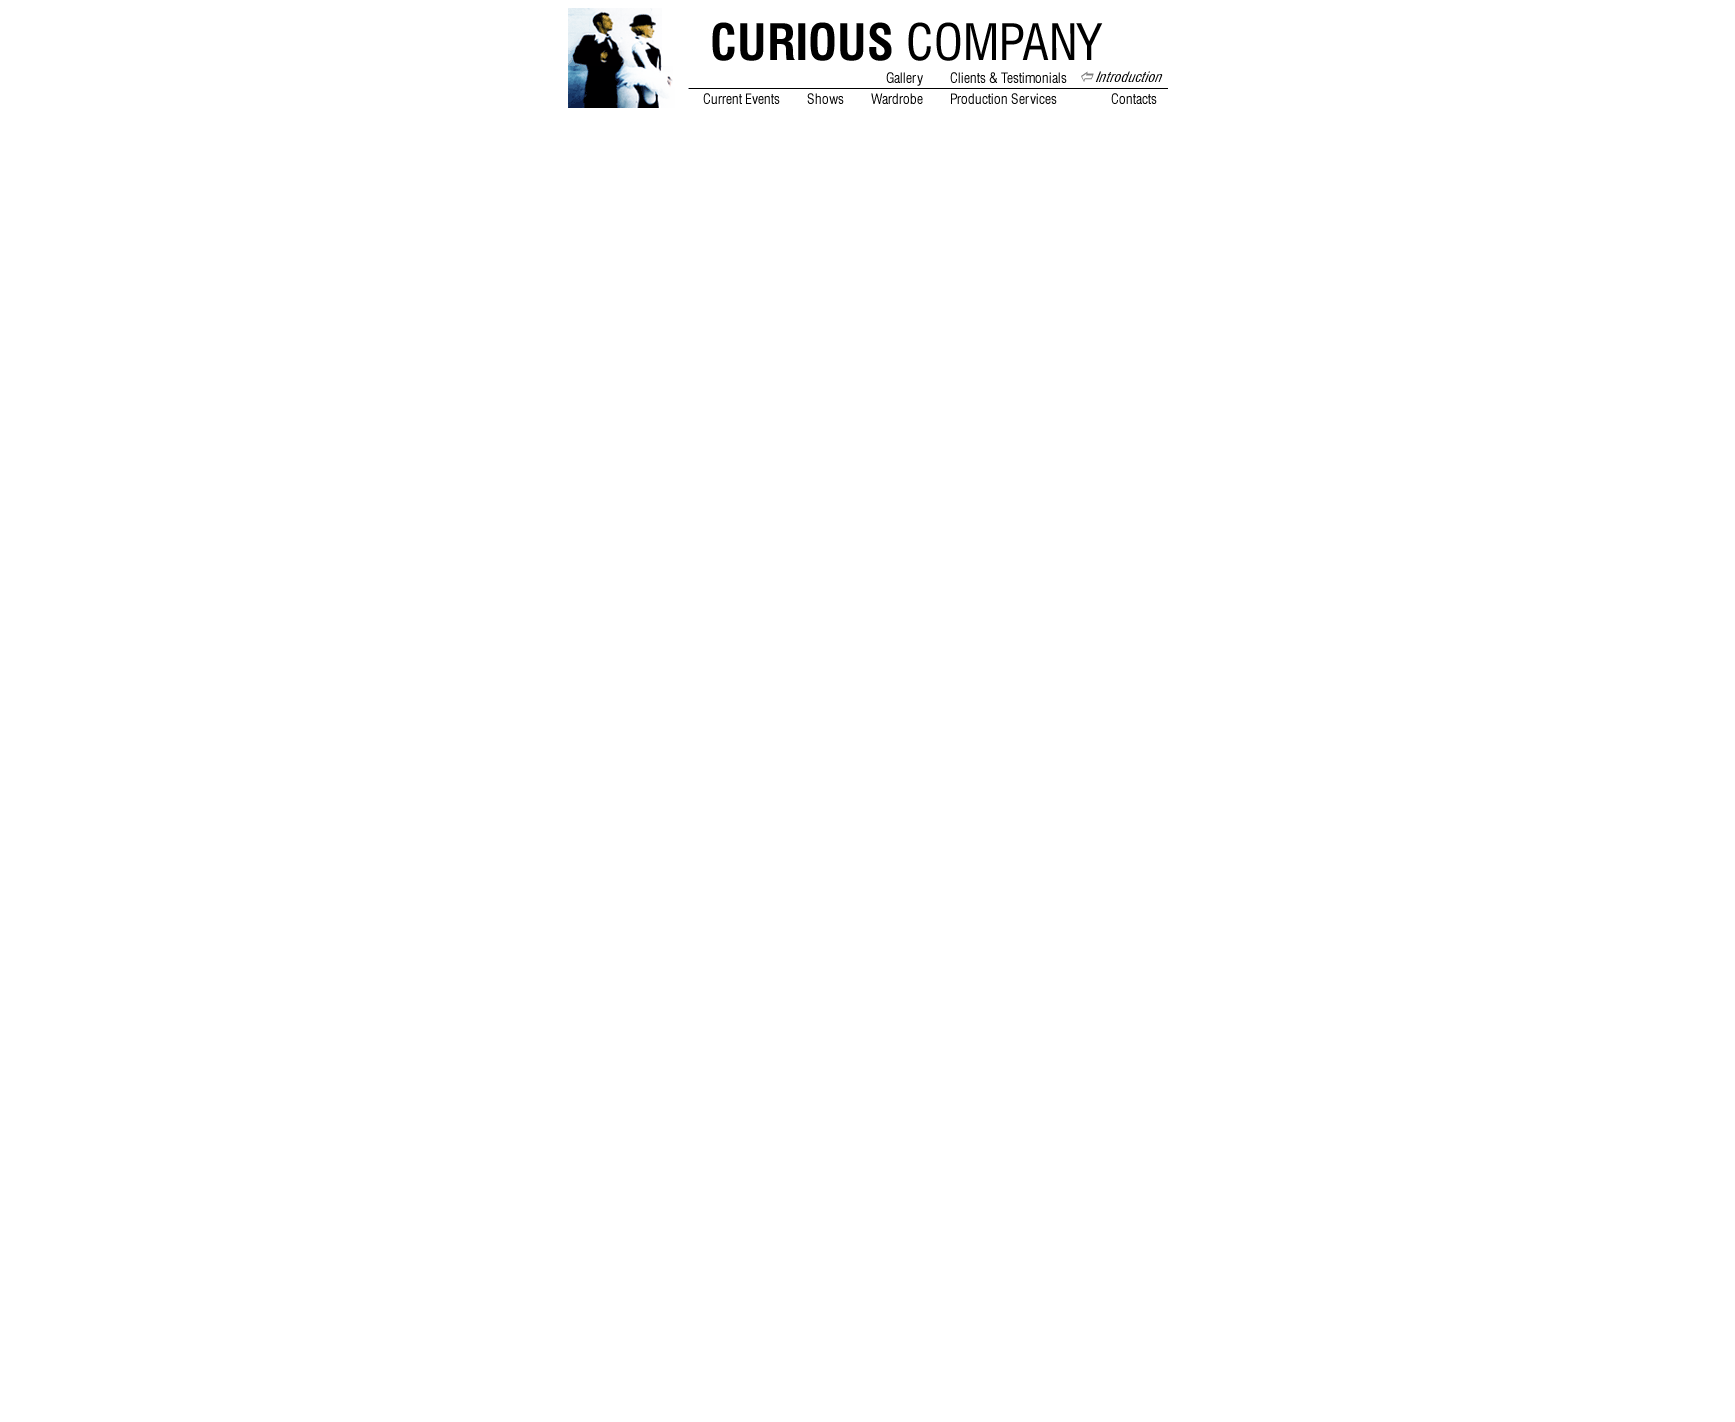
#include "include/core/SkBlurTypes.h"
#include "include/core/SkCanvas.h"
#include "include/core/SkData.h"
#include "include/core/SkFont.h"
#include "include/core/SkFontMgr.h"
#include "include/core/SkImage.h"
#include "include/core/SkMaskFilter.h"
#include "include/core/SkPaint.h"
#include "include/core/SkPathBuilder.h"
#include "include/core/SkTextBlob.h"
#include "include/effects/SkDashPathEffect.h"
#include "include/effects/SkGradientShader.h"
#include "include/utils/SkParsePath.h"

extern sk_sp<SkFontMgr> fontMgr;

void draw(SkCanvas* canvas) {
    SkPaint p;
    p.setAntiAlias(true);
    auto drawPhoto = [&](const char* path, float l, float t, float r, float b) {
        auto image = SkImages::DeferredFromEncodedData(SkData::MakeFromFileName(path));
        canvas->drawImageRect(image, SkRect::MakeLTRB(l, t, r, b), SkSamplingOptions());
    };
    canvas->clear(0xFFFFFFFF);
    drawPhoto("media/1.png", 568, 8, 662, 66);
    drawPhoto("media/2.png", 712, 22, 794, 61);
    drawPhoto("media/3.png", 794, 22, 864, 61);
    drawPhoto("media/4.png", 869, 22, 937, 61);
    drawPhoto("media/5.png", 937, 22, 1075, 61);
    drawPhoto("media/6.png", 1076, 23, 1103, 60);
    drawPhoto("media/7.png", 568, 66, 673, 87);
    drawPhoto("media/8.png", 886, 72, 923, 86);
    drawPhoto("media/9.png", 950, 72, 1067, 83);
    drawPhoto("media/10.png", 1081, 71, 1163, 82);
    drawPhoto("media/11.png", 568, 87, 690, 108);
    drawPhoto("media/12.png", 690, 88, 794, 104);
    drawPhoto("media/13.png", 794, 88, 865, 104);
    drawPhoto("media/14.png", 865, 88, 937, 104);
    drawPhoto("media/15.png", 937, 88, 1075, 104);
    drawPhoto("media/16.png", 1075, 88, 1168, 104);
}
